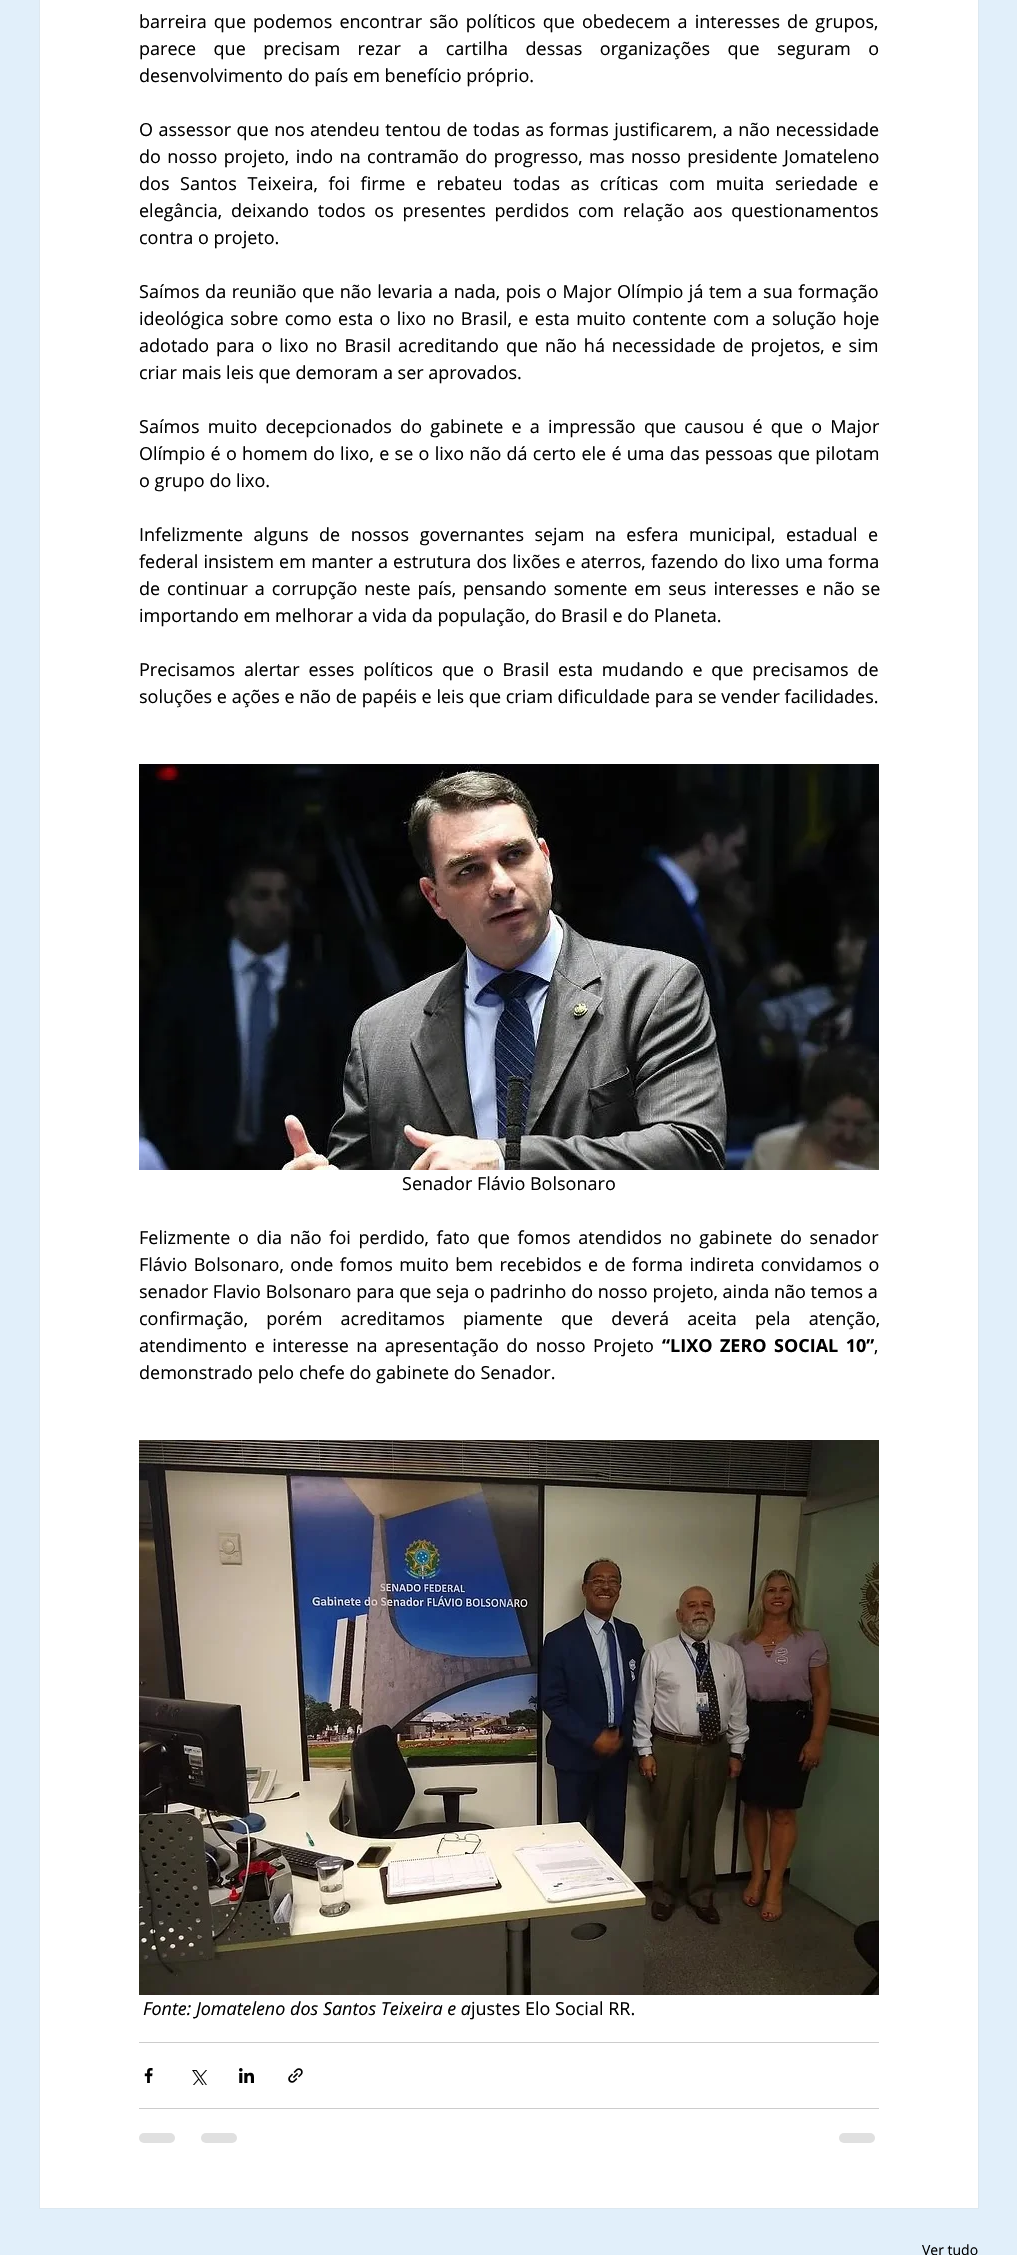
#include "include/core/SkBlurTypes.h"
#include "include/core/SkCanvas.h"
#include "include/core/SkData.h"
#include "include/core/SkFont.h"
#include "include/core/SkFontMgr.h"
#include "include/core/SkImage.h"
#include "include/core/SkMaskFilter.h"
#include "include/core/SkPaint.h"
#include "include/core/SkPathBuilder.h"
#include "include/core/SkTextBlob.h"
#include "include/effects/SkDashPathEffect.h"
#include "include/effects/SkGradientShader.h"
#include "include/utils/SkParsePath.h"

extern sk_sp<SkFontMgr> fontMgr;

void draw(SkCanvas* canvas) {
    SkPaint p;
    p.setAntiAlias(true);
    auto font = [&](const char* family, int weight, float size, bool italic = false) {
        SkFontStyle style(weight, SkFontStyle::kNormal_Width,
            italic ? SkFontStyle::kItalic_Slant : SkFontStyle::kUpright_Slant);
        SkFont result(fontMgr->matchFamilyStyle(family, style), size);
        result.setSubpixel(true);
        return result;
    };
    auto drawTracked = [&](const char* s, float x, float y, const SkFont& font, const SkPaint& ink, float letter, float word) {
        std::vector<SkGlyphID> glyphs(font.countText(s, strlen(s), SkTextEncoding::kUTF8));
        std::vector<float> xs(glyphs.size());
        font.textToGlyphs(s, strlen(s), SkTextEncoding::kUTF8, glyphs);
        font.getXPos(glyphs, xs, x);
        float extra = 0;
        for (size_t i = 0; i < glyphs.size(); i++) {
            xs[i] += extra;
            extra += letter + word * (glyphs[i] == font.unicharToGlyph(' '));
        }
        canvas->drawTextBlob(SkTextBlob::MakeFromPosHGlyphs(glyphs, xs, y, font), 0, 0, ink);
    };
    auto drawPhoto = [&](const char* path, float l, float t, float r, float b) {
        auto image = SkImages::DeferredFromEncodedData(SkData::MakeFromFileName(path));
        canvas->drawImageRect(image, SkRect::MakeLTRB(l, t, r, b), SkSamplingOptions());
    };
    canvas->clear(0xFFE1EFFA);
    p.setColor(0xFFFFFFFF);
    canvas->drawRect(SkRect::MakeLTRB(39.5f, -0.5f, 978.5f, 2208.5f), p);
    p.setStyle(SkPaint::kStroke_Style);
    p.setStrokeWidth(1);
    p.setColor(0xFFDDE8F0);
    canvas->drawRect(SkRect::MakeLTRB(39.5f, -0.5f, 978.5f, 2208.5f), p);
    auto font1 = font("Open Sans", 400, 18);
    p.setStyle(SkPaint::kFill_Style);
    p.setColor(0xFF000000);
    drawTracked("barreira que podemos encontrar são políticos que obedecem a interesses de grupos,", 139, 28, font1, p, 0, 2.4f);
    drawTracked("parece que precisam rezar a cartilha dessas organizações que seguram o", 139, 55, font1, p, 0, 12.75f);
    canvas->drawString("desenvolvimento do país em benefício próprio.", 139, 82, font1, p);
    drawTracked("O assessor que nos atendeu tentou de todas as formas justificarem, a não necessidade", 139, 136, font1, p, 0, 0.75f);
    drawTracked("do nosso projeto, indo na contramão do progresso, mas nosso presidente Jomateleno", 139, 163, font1, p, 0, 1.75f);
    drawTracked("dos Santos Teixeira, foi firme e rebateu todas as críticas com muita seriedade e", 139, 190, font1, p, 0, 5.9f);
    drawTracked("elegância, deixando todos os presentes perdidos com relação aos questionamentos", 139, 217, font1, p, 0, 4.1f);
    canvas->drawString("contra o projeto.", 139, 244, font1, p);
    drawTracked("Saímos da reunião que não levaria a nada, pois o Major Olímpio já tem a sua formação", 139, 298, font1, p, 0, 0.8f);
    drawTracked("ideológica sobre como esta o lixo no Brasil, e esta muito contente com a solução hoje", 139, 325, font1, p, 0, 1.7f);
    drawTracked("adotado para o lixo no Brasil acreditando que não há necessidade de projetos, e sim", 139, 352, font1, p, 0, 2.25f);
    canvas->drawString("criar mais leis que demoram a ser aprovados.", 139, 379, font1, p);
    drawTracked("Saímos muito decepcionados do gabinete e a impressão que causou é que o Major", 139, 433, font1, p, 0, 3.5f);
    drawTracked("Olímpio é o homem do lixo, e se o lixo não dá certo ele é uma das pessoas que pilotam", 139, 460, font1, p, 0, 0.6f);
    canvas->drawString("o grupo do lixo.", 139, 487, font1, p);
    drawTracked("Infelizmente alguns de nossos governantes sejam na esfera municipal, estadual e", 139, 541, font1, p, 0, 5.75f);
    drawTracked("federal insistem em manter a estrutura dos lixões e aterros, fazendo do lixo uma forma", 139, 568, font1, p, 0, 0.5f);
    drawTracked("de continuar a corrupção neste país, pensando somente em seus interesses e não se", 139, 595, font1, p, 0, 2.25f);
    canvas->drawString("importando em melhorar a vida da população, do Brasil e do Planeta.", 139, 622, font1, p);
    drawTracked("Precisamos alertar esses políticos que o Brasil esta mudando e que precisamos de", 139, 676, font1, p, 0, 4.1f);
    canvas->drawString("soluções e ações e não de papéis e leis que criam dificuldade para se vender facilidades.", 139, 703, font1, p);
    drawPhoto("media/1.png", 139, 764, 879, 1170);
    canvas->drawString("Senador Flávio Bolsonaro", 402, 1190, font1, p);
    drawTracked("Felizmente o dia não foi perdido, fato que fomos atendidos no gabinete do senador", 139, 1244, font1, p, 0, 3);
    drawTracked("Flávio Bolsonaro, onde fomos muito bem recebidos e de forma indireta convidamos o", 139, 1271, font1, p, 0, 1.7f);
    canvas->drawString("senador Flavio Bolsonaro para que seja o padrinho do nosso projeto, ainda não temos a", 139, 1298, font1, p);
    drawTracked("confirmação, porém acreditamos piamente que deverá aceita pela atenção,", 139, 1325, font1, p, 0, 13.5f);
    drawTracked("atendimento e interesse na apresentação do nosso Projeto", 139, 1352, font1, p, 0, 2.75f);
    auto font2 = font("Open Sans", 700, 18);
    drawTracked("“LIXO ZERO SOCIAL 10”", 662, 1352, font2, p, 0, 2.75f);
    canvas->drawString(",", 874, 1352, font1, p);
    canvas->drawString("demonstrado pelo chefe do gabinete do Senador.", 139, 1379, font1, p);
    drawPhoto("media/2.png", 139, 1440, 879, 1995);
    auto font3 = font("Open Sans", 400, 18, true);
    canvas->drawString("Fonte: Jomateleno dos Santos Teixeira e a", 143, 2015, font3, p);
    canvas->drawString("justes Elo Social RR.", 471, 2015, font1, p);
    p.setColor(0xFFCCCCCC);
    canvas->drawRect(SkRect::MakeLTRB(139, 2042, 879, 2043), p);
    drawPhoto("media/3.png", 144, 2068, 153, 2083);
    drawPhoto("media/4.png", 192, 2070, 207, 2085);
    drawPhoto("media/5.png", 239, 2068, 254, 2083);
    drawPhoto("media/6.png", 288, 2068, 303, 2083);
    canvas->drawRect(SkRect::MakeLTRB(139, 2108, 879, 2109), p);
    p.setColor(0xFFE0E0E0);
    canvas->drawRoundRect(SkRect::MakeLTRB(139, 2133, 175, 2143), 5, 5, p);
    canvas->drawRoundRect(SkRect::MakeLTRB(201, 2133, 237, 2143), 5, 5, p);
    canvas->drawRoundRect(SkRect::MakeLTRB(839, 2133, 875, 2143), 5, 5, p);
    auto font4 = font("Open Sans", 400, 14);
    p.setColor(0xFF000000);
    canvas->drawString("Ver tudo", 922, 2255, font4, p);
}
